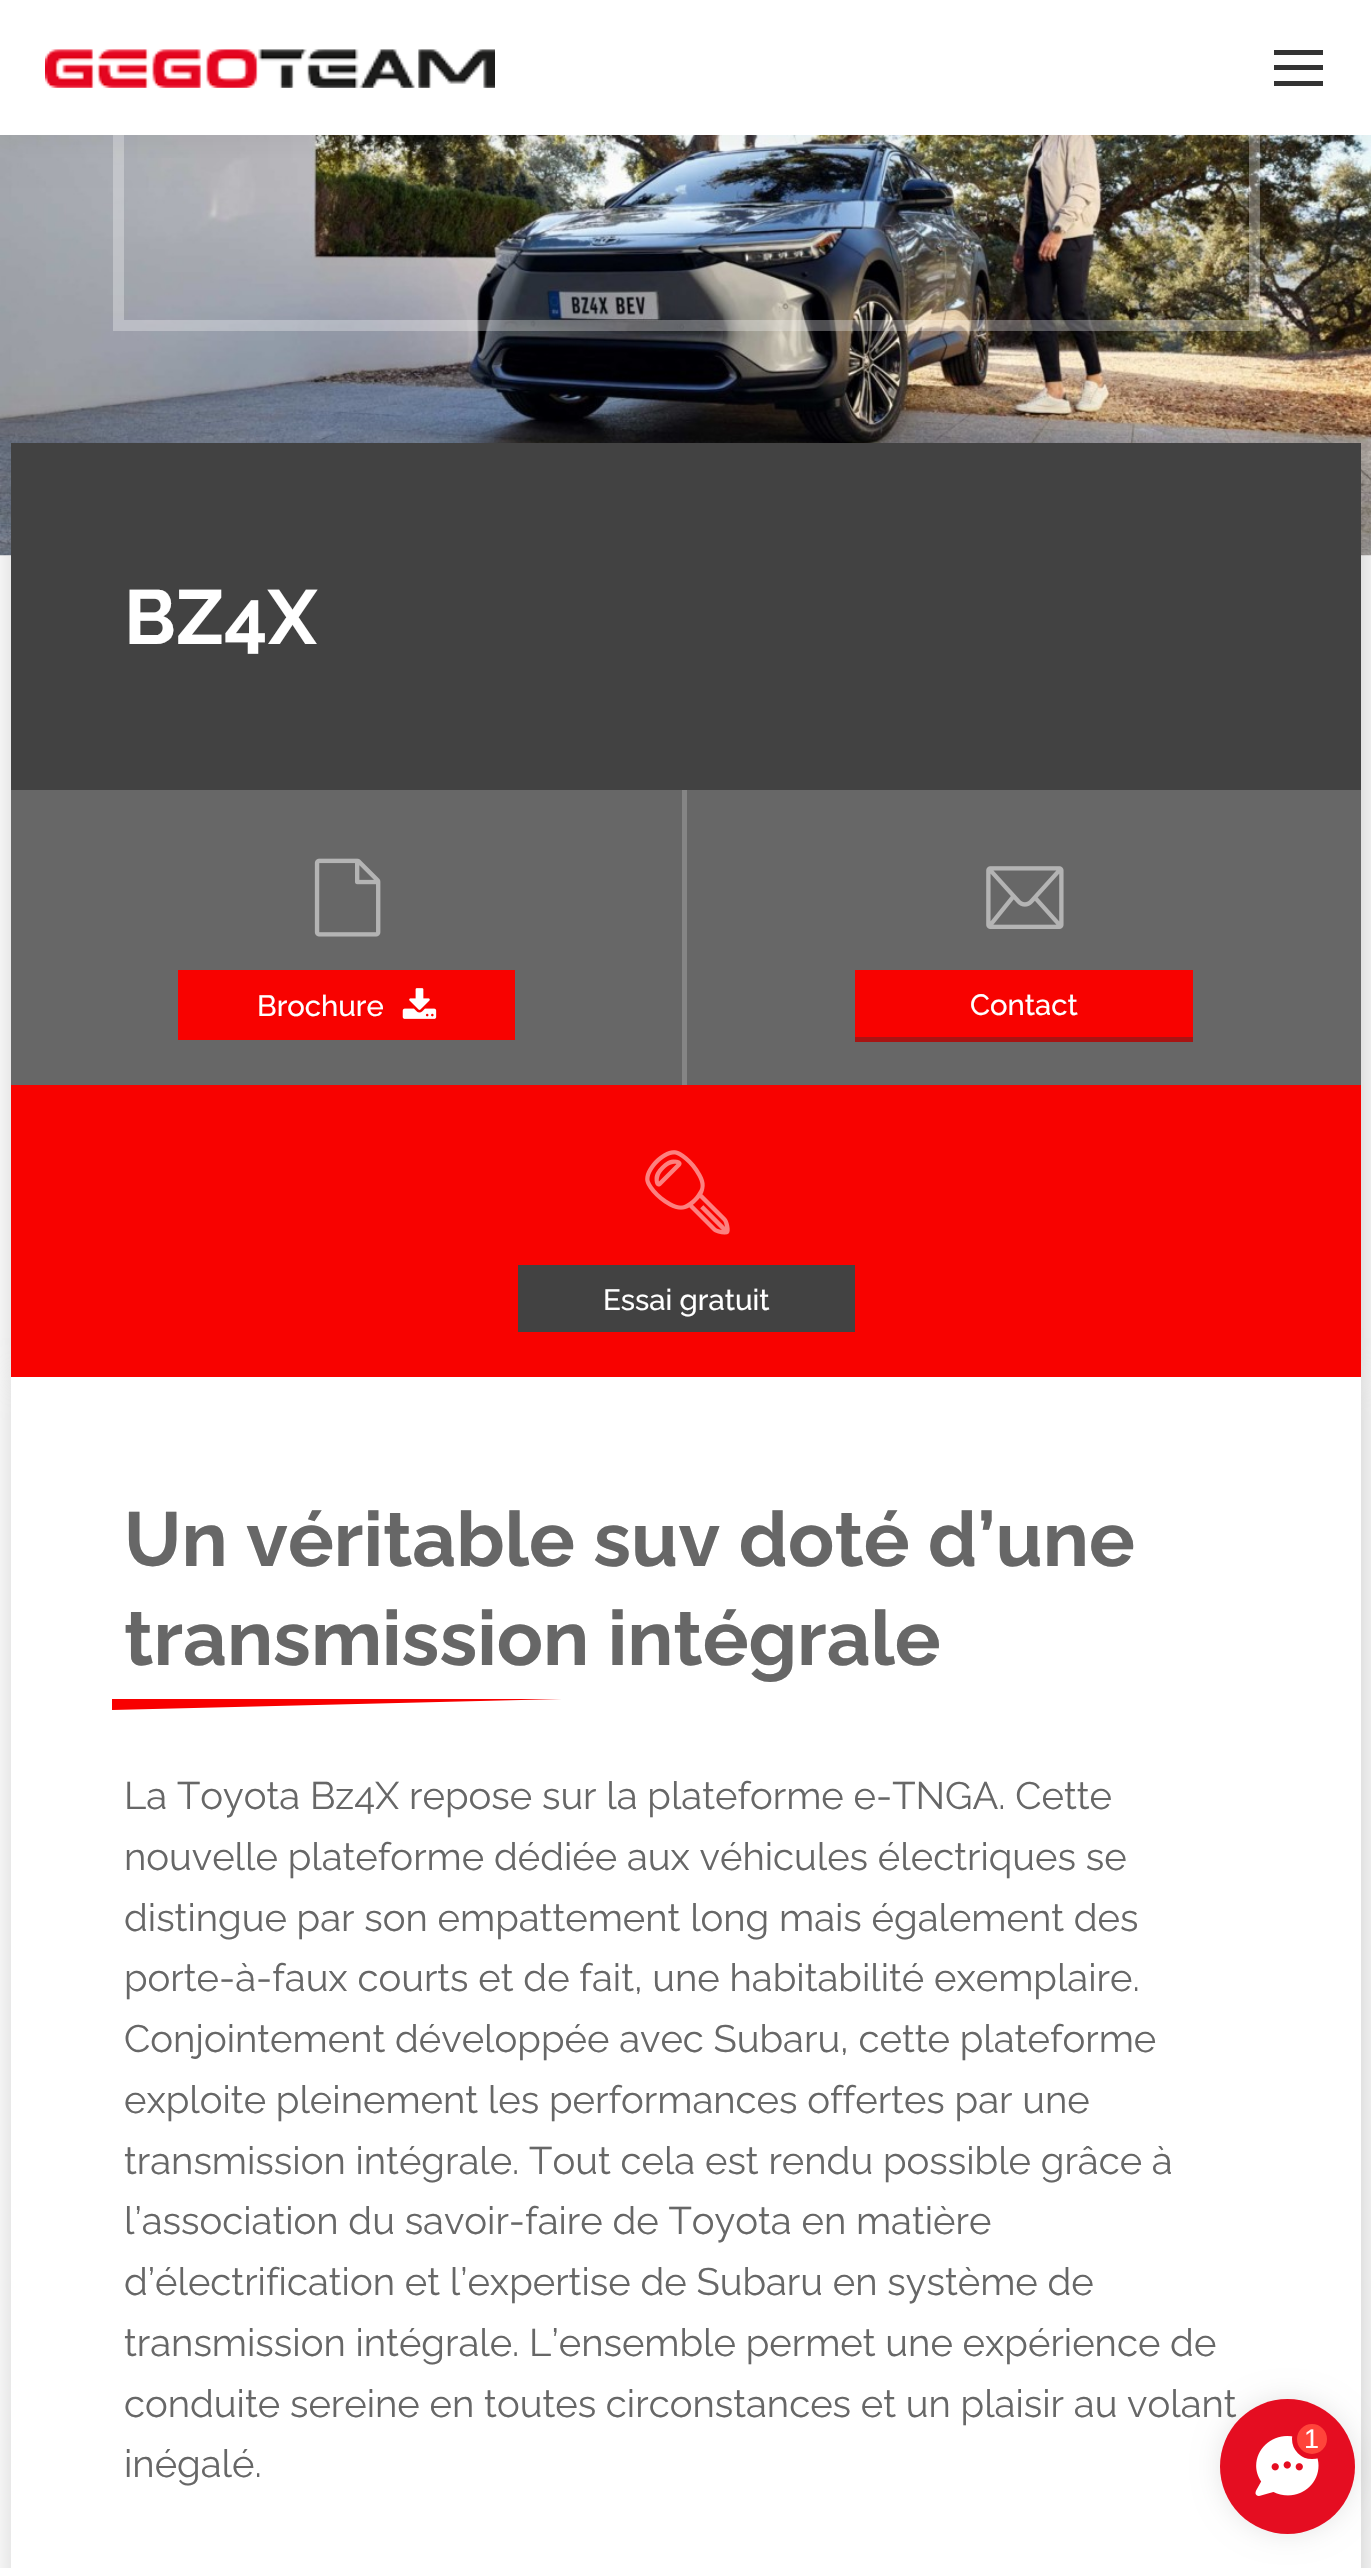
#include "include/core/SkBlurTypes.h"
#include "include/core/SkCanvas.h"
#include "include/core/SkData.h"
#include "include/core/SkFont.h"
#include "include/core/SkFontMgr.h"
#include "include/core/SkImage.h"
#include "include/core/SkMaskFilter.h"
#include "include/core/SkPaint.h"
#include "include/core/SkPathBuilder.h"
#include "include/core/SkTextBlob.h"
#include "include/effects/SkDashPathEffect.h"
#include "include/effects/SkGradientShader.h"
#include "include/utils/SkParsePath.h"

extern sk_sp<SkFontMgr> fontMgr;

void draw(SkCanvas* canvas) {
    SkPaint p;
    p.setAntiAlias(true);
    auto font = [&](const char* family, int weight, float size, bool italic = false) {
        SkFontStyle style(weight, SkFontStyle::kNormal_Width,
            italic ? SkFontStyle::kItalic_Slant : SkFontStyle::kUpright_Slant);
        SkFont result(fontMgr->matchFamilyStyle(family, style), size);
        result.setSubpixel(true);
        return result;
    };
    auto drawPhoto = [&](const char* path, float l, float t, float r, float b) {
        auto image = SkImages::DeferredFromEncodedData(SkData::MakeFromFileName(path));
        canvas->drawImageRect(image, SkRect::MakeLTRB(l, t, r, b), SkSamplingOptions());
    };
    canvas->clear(0xFFFFFFFF);
    drawPhoto("media/2.png", 0, 135, 1371, 556);
    p.setStyle(SkPaint::kStroke_Style);
    p.setStrokeWidth(11);
    p.setColor(0x4DFFFFFF);
    canvas->drawRect(SkRect::MakeLTRB(118.5f, 10.5f, 1254.5f, 325.5f), p);
    p.setStyle(SkPaint::kFill_Style);
    p.setColor(0x12000000);
    p.setMaskFilter(SkMaskFilter::MakeBlur(kNormal_SkBlurStyle, 17));
    canvas->drawRect(SkRect::MakeLTRB(-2, -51, 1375, 137), p);
    p.setMaskFilter(nullptr);
    p.setColor(0xFFFFFFFF);
    canvas->drawRect(SkRect::MakeLTRB(0, 0, 1371, 135), p);
    drawPhoto("media/1.png", 45, 49, 495, 88);
    {
        const struct { float l, t, r, b; SkColor color; } items[] = {
            {1274, 50, 1323, 55, 0xFF333333},
            {1274, 65, 1323, 70, 0xFF333333},
            {1274, 81, 1323, 86, 0xFF333333},
        };
        for (auto [l, t, r, b, color] : items) {
            p.setColor(color);
            canvas->drawRect(SkRect::MakeLTRB(l, t, r, b), p);
        }
    }
    p.setColor(0x33000000);
    p.setMaskFilter(SkMaskFilter::MakeBlur(kNormal_SkBlurStyle, 17));
    canvas->drawRect(SkRect::MakeLTRB(14, 446, 1364, 1379), p);
    p.setMaskFilter(nullptr);
    p.setColor(0xFF676767);
    canvas->drawRect(SkRect::MakeLTRB(11, 790, 1361, 1085), p);
    p.setColor(0xFF424242);
    canvas->drawRect(SkRect::MakeLTRB(11, 443, 1361, 790), p);
    auto font1 = font("Raleway", 700, 76.5f);
    p.setColor(0xFFFFFFFF);
    canvas->drawString("BZ4X", 124, 644, font1, p);
    p.setColor(0xFF858585);
    canvas->drawRect(SkRect::MakeLTRB(682, 790, 687, 1085), p);
    drawPhoto("media/3.png", 314, 858, 381, 937);
    p.setColor(0xFFF80200);
    canvas->drawRect(SkRect::MakeLTRB(178, 970, 515, 1040), p);
    auto font2 = font("Raleway", 500, 29.25f);
    p.setColor(0xFFFFFFFF);
    canvas->drawString("Brochure", 257, 1016, font2, p);
    drawPhoto("media/4.png", 402, 988, 437, 1019);
    drawPhoto("media/5.png", 986, 866, 1064, 929);
    p.setColor(0xFFA81413);
    canvas->drawPath(SkPathBuilder().moveTo(855, 1037).lineTo(855, 1042).lineTo(1193, 1042).lineTo(1193, 974).lineTo(1192, 974).lineTo(1192, 1037).close().detach(), p);
    p.setColor(0xFFF80200);
    canvas->drawRect(SkRect::MakeLTRB(855, 970, 1193, 1037), p);
    p.setColor(0xFFFFFFFF);
    canvas->drawString("Contact", 970, 1015, font2, p);
    p.setColor(0x33000000);
    p.setMaskFilter(SkMaskFilter::MakeBlur(kNormal_SkBlurStyle, 17));
    canvas->drawRect(SkRect::MakeLTRB(14, 1379, 1364, 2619), p);
    p.setMaskFilter(nullptr);
    p.setColor(0xFFF80200);
    canvas->drawRect(SkRect::MakeLTRB(11, 1085, 1361, 1377), p);
    drawPhoto("media/6.png", 645, 1150, 730, 1235);
    p.setColor(0xFF424242);
    canvas->drawRect(SkRect::MakeLTRB(518, 1265, 855, 1332), p);
    p.setColor(0xFFFFFFFF);
    canvas->drawString("Essai gratuit", 603, 1310, font2, p);
    canvas->drawRect(SkRect::MakeLTRB(11, 1377, 1361, 2568), p);
    p.setColor(0xFF676767);
    canvas->drawString("Un véritable suv doté d’une", 124, 1566, font1, p);
    canvas->drawString("transmission intégrale", 124, 1665, font1, p);
    p.setColor(0xFFF80000);
    canvas->drawPath(SkPathBuilder().moveTo(112, 1699).lineTo(562, 1699).lineTo(112, 1710).close().detach(), p);
    auto font3 = font("Raleway", 400, 38.25f);
    p.setColor(0xFF676767);
    {
        const struct { const char* s; float x, y; } items[] = {
            {"La Toyota Bz4X repose sur la plateforme e-TNGA. Cette", 124, 1809},
            {"nouvelle plateforme dédiée aux véhicules électriques se", 124, 1870},
            {"distingue par son empattement long mais également des", 124, 1931},
            {"porte-à-faux courts et de fait, une habitabilité exemplaire.", 124, 1991},
            {"Conjointement développée avec Subaru, cette plateforme", 124, 2052},
            {"exploite pleinement les performances offertes par une", 124, 2113},
            {"transmission intégrale. Tout cela est rendu possible grâce à", 124, 2174},
            {"l’association du savoir-faire de Toyota en matière", 124, 2234},
            {"d’électrification et l’expertise de Subaru en système de", 124, 2295},
            {"transmission intégrale. L’ensemble permet une expérience de", 124, 2356},
            {"conduite sereine en toutes circonstances et un plaisir au volant", 124, 2417},
            {"inégalé.", 124, 2477},
        };
        for (auto [s, x, y] : items) {
            canvas->drawString(s, x, y, font3, p);
        }
    }
    p.setColor(0x1A000000);
    p.setMaskFilter(SkMaskFilter::MakeBlur(kNormal_SkBlurStyle, 13.5f));
    canvas->drawRoundRect(SkRect::MakeLTRB(1220, 2399, 1355, 2534), 67.5f, 67.5f, p);
    p.setMaskFilter(nullptr);
    p.setColor(0xFFE50D21);
    canvas->drawCircle(1287.5f, 2466.5f, 67.5f, p);
    drawPhoto("media/7.png", 1255, 2436, 1319, 2496);
    p.setColor(0xFFFF443A);
    canvas->drawCircle(1312, 2439, 17.5f, p);
    p.setStyle(SkPaint::kStroke_Style);
    p.setStrokeWidth(5);
    p.setColor(0xFFE50D21);
    canvas->drawCircle(1312, 2439, 17.5f, p);
    auto font4 = font("Liberation Sans", 400, 27);
    p.setStyle(SkPaint::kFill_Style);
    p.setColor(0xFFFFFFFF);
    canvas->drawString("1", 1304, 2448, font4, p);
}
